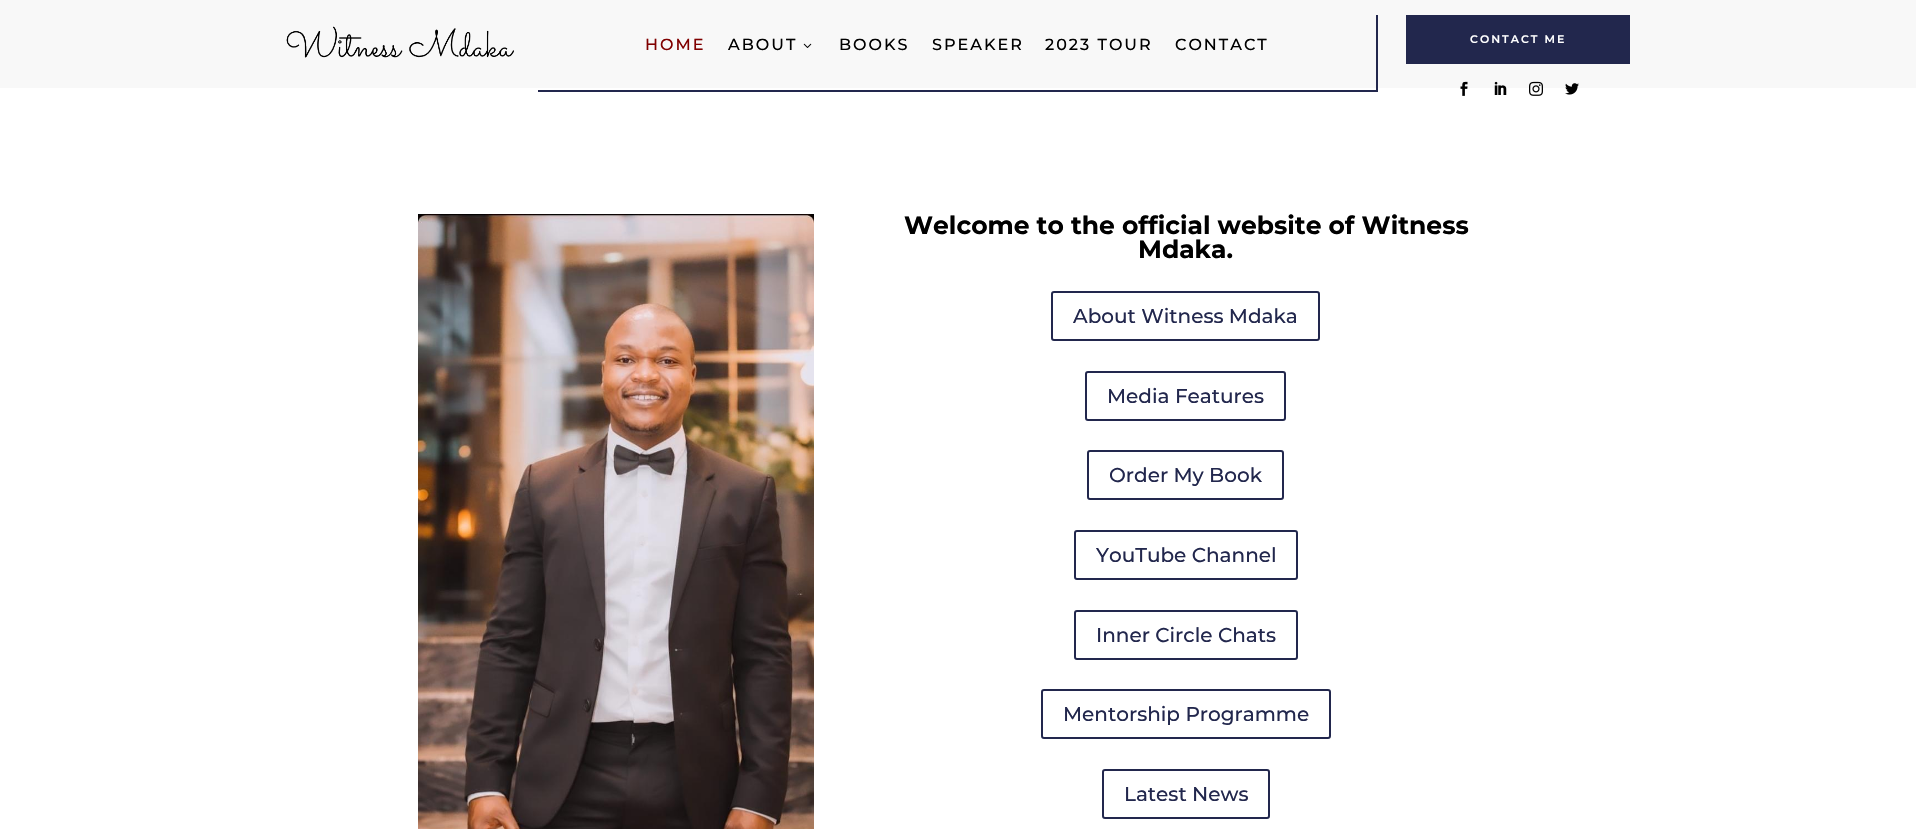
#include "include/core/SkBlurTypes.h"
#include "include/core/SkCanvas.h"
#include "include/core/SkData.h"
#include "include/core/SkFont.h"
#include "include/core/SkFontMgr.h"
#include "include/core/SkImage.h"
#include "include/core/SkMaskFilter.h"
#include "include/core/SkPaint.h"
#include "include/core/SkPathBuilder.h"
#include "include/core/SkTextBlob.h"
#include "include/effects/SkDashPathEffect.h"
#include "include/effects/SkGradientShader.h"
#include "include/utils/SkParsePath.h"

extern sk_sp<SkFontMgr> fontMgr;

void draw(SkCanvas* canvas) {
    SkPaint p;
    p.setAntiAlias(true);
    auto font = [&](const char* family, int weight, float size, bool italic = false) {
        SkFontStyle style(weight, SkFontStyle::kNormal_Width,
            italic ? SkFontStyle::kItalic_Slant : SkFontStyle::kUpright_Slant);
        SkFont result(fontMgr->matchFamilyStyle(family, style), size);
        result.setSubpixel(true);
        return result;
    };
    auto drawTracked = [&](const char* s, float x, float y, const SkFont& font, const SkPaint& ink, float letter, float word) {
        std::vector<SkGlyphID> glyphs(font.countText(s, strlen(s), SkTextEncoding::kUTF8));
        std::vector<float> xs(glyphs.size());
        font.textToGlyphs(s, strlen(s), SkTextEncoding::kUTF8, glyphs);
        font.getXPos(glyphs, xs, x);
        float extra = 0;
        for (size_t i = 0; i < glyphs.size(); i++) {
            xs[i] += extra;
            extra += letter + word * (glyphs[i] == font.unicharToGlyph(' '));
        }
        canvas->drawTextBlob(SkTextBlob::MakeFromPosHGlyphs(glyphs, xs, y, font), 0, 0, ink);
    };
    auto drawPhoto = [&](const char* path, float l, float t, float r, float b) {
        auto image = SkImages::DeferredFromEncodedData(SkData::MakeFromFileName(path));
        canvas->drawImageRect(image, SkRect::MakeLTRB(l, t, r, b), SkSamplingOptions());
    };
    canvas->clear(0xFFFFFFFF);
    p.setColor(0xFFF8F8F8);
    canvas->drawRect(SkRect::MakeLTRB(0, 0, 1916, 88), p);
    drawPhoto("media/1.png", 286, 26, 514, 58);
    p.setColor(0xFF22274D);
    canvas->drawRect(SkRect::MakeLTRB(1376, 15, 1378, 92), p);
    canvas->drawRect(SkRect::MakeLTRB(538, 90, 1378, 92), p);
    auto font1 = font("Montserrat", 500, 16);
    p.setColor(0xFF800000);
    drawTracked("HOME", 645, 50, font1, p, 2, 0);
    p.setColor(0xFF000000);
    drawTracked("ABOUT", 728, 50, font1, p, 2, 0);
    drawPhoto("media/2.png", 803, 43, 812, 48);
    {
        const struct { const char* s; float x, y; } items[] = {
            {"BOOKS", 839, 50},
            {"SPEAKER", 932, 50},
            {"2023 TOUR", 1045, 50},
            {"CONTACT", 1175, 50},
        };
        for (auto [s, x, y] : items) {
            drawTracked(s, x, y, font1, p, 2, 0);
        }
    }
    p.setColor(0xFF22274D);
    canvas->drawRect(SkRect::MakeLTRB(1406, 15, 1630, 64), p);
    auto font2 = font("Montserrat", 600, 11);
    p.setColor(0xFFFFFFFF);
    drawTracked("CONTACT ME", 1470, 43, font2, p, 2, 0);
    drawPhoto("media/3.png", 1460, 81, 1468, 96);
    drawPhoto("media/4.png", 1494, 81, 1507, 95);
    drawPhoto("media/5.png", 1529, 81, 1543, 96);
    drawPhoto("media/6.png", 1565, 83, 1579, 95);
    drawPhoto("media/7.png", 418, 214, 814, 829);
    auto font3 = font("Montserrat", 700, 25);
    p.setColor(0xFF000000);
    canvas->drawString("Welcome to the official website of Witness", 904, 234, font3, p);
    canvas->drawString("Mdaka.", 1138, 258, font3, p);
    p.setStyle(SkPaint::kStroke_Style);
    p.setStrokeWidth(2);
    p.setColor(0xFF22274D);
    canvas->drawRoundRect(SkRect::MakeLTRB(1052, 292, 1319, 340), 2, 2, p);
    auto font4 = font("Montserrat", 500, 20);
    p.setStyle(SkPaint::kFill_Style);
    canvas->drawString("About Witness Mdaka", 1073, 323, font4, p);
    p.setStyle(SkPaint::kStroke_Style);
    canvas->drawRoundRect(SkRect::MakeLTRB(1086, 372, 1285, 420), 2, 2, p);
    p.setStyle(SkPaint::kFill_Style);
    canvas->drawString("Media Features", 1107, 403, font4, p);
    p.setStyle(SkPaint::kStroke_Style);
    canvas->drawRoundRect(SkRect::MakeLTRB(1088, 451, 1283, 499), 2, 2, p);
    p.setStyle(SkPaint::kFill_Style);
    canvas->drawString("Order My Book", 1109, 482, font4, p);
    p.setStyle(SkPaint::kStroke_Style);
    canvas->drawRoundRect(SkRect::MakeLTRB(1075, 531, 1297, 579), 2, 2, p);
    p.setStyle(SkPaint::kFill_Style);
    canvas->drawString("YouTube Channel", 1096, 562, font4, p);
    p.setStyle(SkPaint::kStroke_Style);
    canvas->drawRoundRect(SkRect::MakeLTRB(1075, 611, 1297, 659), 2, 2, p);
    p.setStyle(SkPaint::kFill_Style);
    canvas->drawString("Inner Circle Chats", 1096, 642, font4, p);
    p.setStyle(SkPaint::kStroke_Style);
    canvas->drawRoundRect(SkRect::MakeLTRB(1042, 690, 1330, 738), 2, 2, p);
    p.setStyle(SkPaint::kFill_Style);
    canvas->drawString("Mentorship Programme", 1063, 721, font4, p);
    p.setStyle(SkPaint::kStroke_Style);
    canvas->drawRoundRect(SkRect::MakeLTRB(1103, 770, 1269, 818), 2, 2, p);
    p.setStyle(SkPaint::kFill_Style);
    canvas->drawString("Latest News", 1124, 801, font4, p);
}
